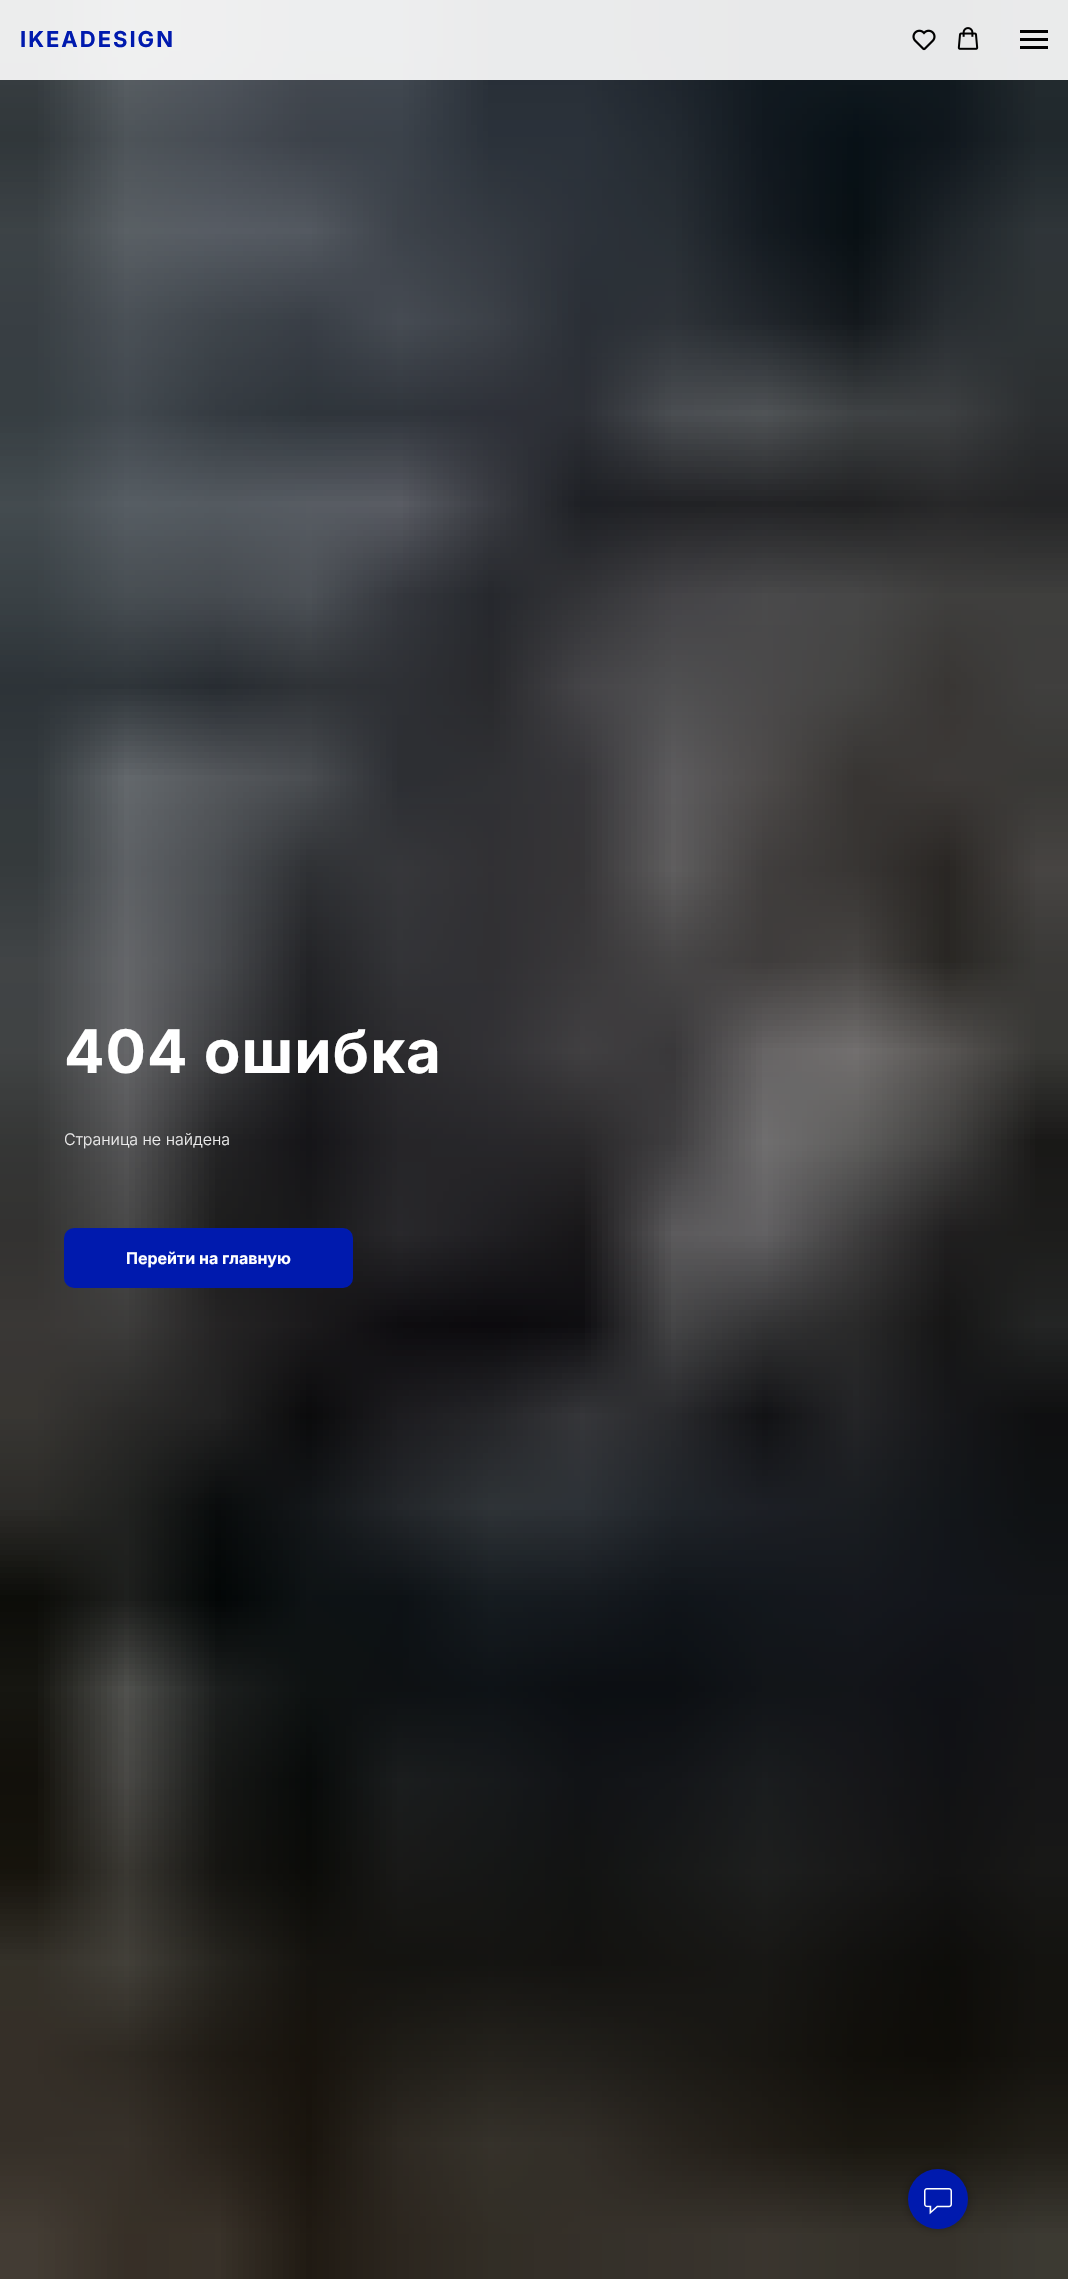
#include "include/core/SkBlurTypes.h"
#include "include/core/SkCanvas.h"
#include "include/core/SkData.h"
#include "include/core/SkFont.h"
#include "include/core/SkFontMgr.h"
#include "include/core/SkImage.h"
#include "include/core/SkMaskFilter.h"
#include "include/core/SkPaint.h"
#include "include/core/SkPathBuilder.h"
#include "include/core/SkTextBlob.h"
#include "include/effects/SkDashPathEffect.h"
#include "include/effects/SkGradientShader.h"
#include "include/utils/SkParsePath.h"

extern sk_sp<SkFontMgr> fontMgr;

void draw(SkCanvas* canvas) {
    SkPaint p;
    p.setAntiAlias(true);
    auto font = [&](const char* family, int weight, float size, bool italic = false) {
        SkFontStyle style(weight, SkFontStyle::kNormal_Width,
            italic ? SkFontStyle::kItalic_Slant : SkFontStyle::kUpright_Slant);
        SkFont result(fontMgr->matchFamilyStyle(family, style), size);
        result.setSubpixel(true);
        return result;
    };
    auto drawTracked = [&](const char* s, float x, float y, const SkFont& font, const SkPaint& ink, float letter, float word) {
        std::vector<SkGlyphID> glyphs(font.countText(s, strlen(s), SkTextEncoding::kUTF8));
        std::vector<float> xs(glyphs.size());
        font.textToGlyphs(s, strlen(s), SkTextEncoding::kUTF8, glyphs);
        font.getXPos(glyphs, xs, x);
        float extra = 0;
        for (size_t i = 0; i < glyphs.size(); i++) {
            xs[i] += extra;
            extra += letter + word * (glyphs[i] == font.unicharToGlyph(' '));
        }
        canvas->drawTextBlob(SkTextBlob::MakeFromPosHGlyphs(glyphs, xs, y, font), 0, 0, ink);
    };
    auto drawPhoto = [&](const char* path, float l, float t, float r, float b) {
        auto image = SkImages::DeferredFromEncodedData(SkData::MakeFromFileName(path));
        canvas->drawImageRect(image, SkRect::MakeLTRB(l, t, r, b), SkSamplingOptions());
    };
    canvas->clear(0xFFFFFFFF);
    drawPhoto("media/3.png", 0, 0, 1068, 2279);
    p.setColor(0xE6FFFFFF);
    canvas->drawRect(SkRect::MakeLTRB(0, 0, 1068, 80), p);
    auto font1 = font("Inter", 700, 22);
    p.setColor(0xFF001AAE);
    drawTracked("IKEADESIGN", 20, 47, font1, p, 2, 0);
    drawPhoto("media/1.png", 912, 29, 936, 51);
    drawPhoto("media/2.png", 957, 27, 979, 50);
    {
        const struct { float l, t, r, b; SkColor color; } items[] = {
            {1020, 30, 1048, 33, 0xFF000000},
            {1020, 38, 1048, 41, 0xFF000000},
            {1020, 46, 1048, 49, 0xFF000000},
        };
        for (auto [l, t, r, b, color] : items) {
            p.setColor(color);
            canvas->drawRect(SkRect::MakeLTRB(l, t, r, b), p);
        }
    }
    auto font2 = font("Inter", 700, 60);
    p.setColor(0xFFFFFFFF);
    drawTracked("404 ошибка", 64, 1073, font2, p, 1, 0);
    auto font3 = font("Inter", 300, 16);
    p.setColor(0xFFECECEC);
    canvas->drawString("Страница не найдена", 64, 1145, font3, p);
    p.setColor(0xFF001AAE);
    canvas->drawRoundRect(SkRect::MakeLTRB(64, 1228, 353, 1288), 10, 10, p);
    auto font4 = font("Inter", 700, 16);
    p.setColor(0xFFFFFFFF);
    canvas->drawString("Перейти на главную", 126, 1264, font4, p);
    p.setColor(0x4D000000);
    p.setMaskFilter(SkMaskFilter::MakeBlur(kNormal_SkBlurStyle, 5));
    canvas->drawRoundRect(SkRect::MakeLTRB(908, 2169, 968, 2229), 30, 30, p);
    p.setMaskFilter(nullptr);
    p.setColor(0xFF001AAE);
    canvas->drawCircle(938, 2199, 30, p);
    drawPhoto("media/4.png", 924, 2188, 952, 2215);
}
